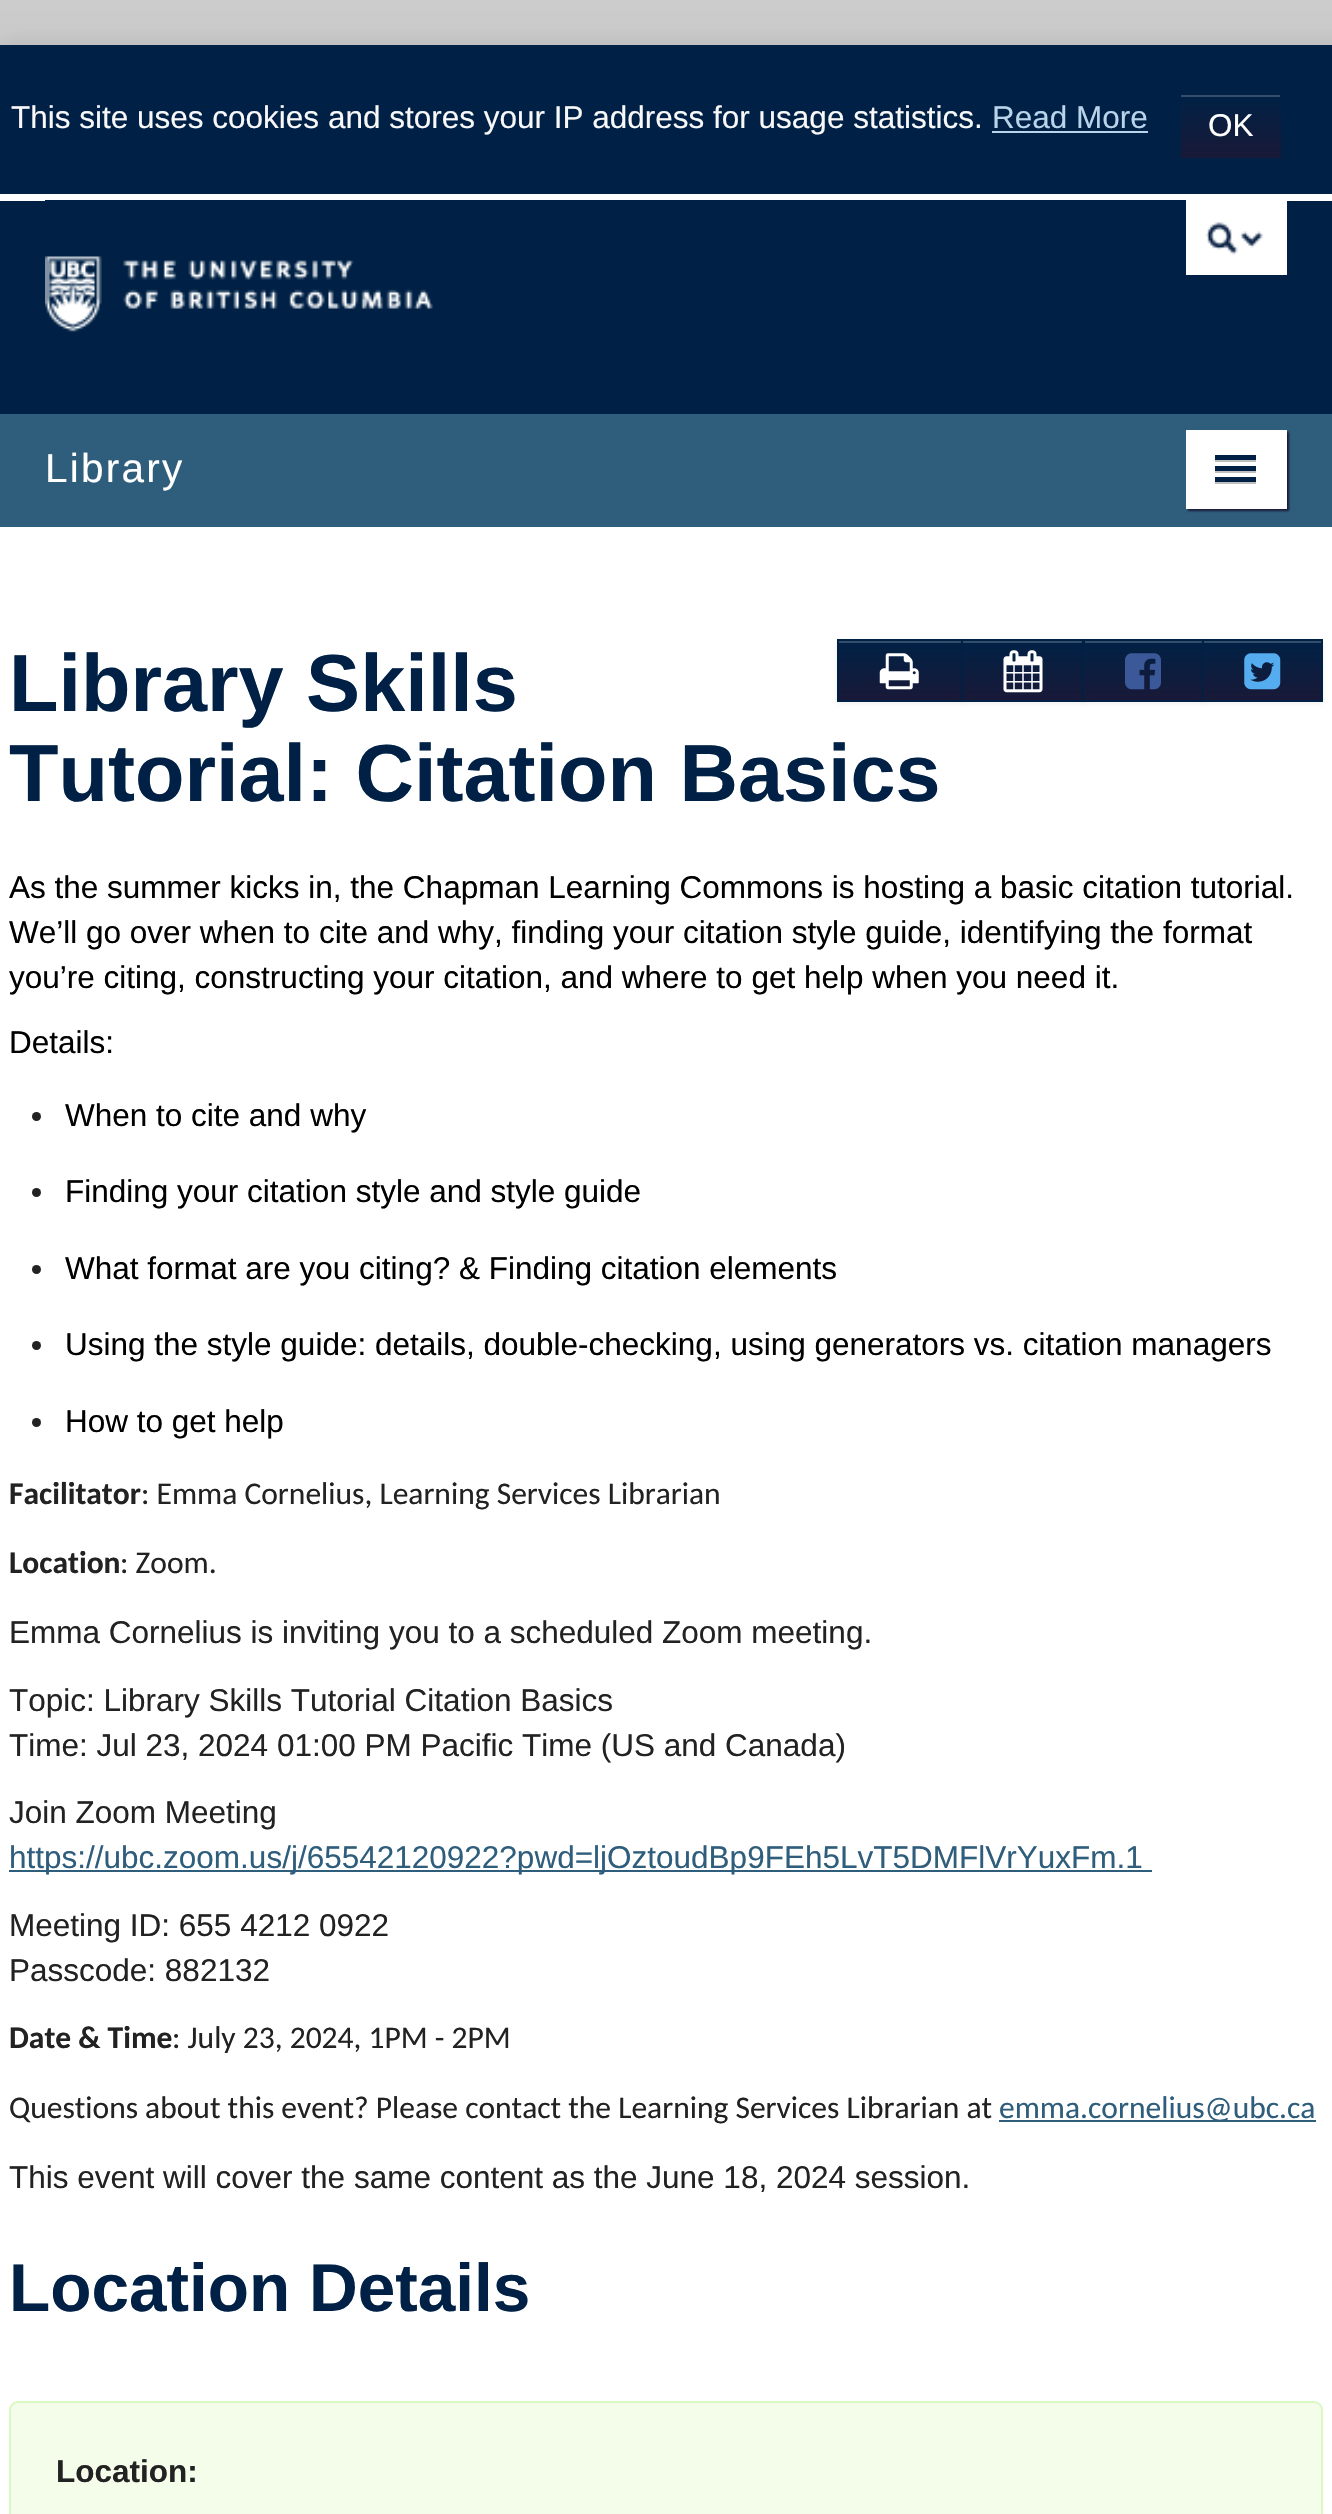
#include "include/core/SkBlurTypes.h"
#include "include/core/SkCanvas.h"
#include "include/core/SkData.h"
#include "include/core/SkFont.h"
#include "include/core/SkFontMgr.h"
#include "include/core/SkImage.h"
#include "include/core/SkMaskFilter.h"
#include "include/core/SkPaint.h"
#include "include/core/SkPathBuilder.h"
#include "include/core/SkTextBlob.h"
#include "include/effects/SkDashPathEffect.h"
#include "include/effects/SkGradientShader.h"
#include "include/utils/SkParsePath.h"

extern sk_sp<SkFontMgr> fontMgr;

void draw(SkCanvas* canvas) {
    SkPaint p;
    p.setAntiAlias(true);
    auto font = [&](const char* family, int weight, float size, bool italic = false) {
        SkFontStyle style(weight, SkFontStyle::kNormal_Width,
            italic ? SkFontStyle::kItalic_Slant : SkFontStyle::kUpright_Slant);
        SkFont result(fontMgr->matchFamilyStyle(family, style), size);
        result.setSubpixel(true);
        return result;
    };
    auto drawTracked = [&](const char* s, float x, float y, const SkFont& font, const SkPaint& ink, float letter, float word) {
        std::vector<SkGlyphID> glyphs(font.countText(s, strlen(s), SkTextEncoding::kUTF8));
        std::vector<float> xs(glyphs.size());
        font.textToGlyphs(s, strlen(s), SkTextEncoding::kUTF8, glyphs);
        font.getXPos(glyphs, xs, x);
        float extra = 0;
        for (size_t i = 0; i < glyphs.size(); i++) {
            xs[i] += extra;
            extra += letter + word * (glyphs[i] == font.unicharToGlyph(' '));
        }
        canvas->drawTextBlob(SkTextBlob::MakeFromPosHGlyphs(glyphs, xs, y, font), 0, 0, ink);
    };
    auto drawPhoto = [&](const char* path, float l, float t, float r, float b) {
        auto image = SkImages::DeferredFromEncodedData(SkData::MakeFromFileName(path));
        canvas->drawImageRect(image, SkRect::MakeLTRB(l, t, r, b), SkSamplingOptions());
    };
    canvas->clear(0xFFCCCCCC);
    p.setColor(0x1A000000);
    p.setMaskFilter(SkMaskFilter::MakeBlur(kNormal_SkBlurStyle, 11));
    canvas->drawRect(SkRect::MakeLTRB(0, 43, 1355, 191), p);
    p.setMaskFilter(nullptr);
    p.setColor(0xFF002145);
    canvas->drawRect(SkRect::MakeLTRB(0, 45, 1332, 194), p);
    auto font1 = font("Liberation Sans", 400, 31.5f);
    p.setColor(0xFFF8F8F8);
    canvas->drawString("This site uses cookies and stores your IP address for usage statistics.", 11, 128, font1, p);
    p.setColor(0xFFB9D3EB);
    canvas->drawString("Read More", 992, 128, font1, p);
    canvas->drawRect(SkRect::MakeLTRB(992, 131, 1148, 133), p);
    {
        const SkColor colors[] = {0xFF002145, 0xFF191938};
        const float stops[] = {0, 1};
        const SkPoint ends[] = {{1231, 95}, {1231, 158}};
        p.setShader(SkGradientShader::MakeLinear(ends, colors, stops, 2, SkTileMode::kClamp));
        p.setAlpha(255);
    }
    canvas->drawRect(SkRect::MakeLTRB(1181, 101, 1281, 158), p);
    p.setShader(nullptr);
    p.setColor(0xFF334D6A);
    canvas->drawRect(SkRect::MakeLTRB(1181, 95, 1280, 97), p);
    p.setColor(0xFFFFFFFF);
    canvas->drawString("OK", 1208, 136, font1, p);
    {
        const struct { float l, t, r, b; SkColor color; } items[] = {
            {0, 201, 1332, 414, 0xFF002145},
            {0, 194, 1332, 201, 0xFFFFFFFF},
            {45, 200, 1287, 201, 0xFF002145},
        };
        for (auto [l, t, r, b, color] : items) {
            p.setColor(color);
            canvas->drawRect(SkRect::MakeLTRB(l, t, r, b), p);
        }
    }
    drawPhoto("media/1.png", 45, 256, 433, 332);
    p.setColor(0xFFFFFFFF);
    canvas->drawRect(SkRect::MakeLTRB(1186, 200, 1287, 275), p);
    drawPhoto("media/2.png", 1205, 222, 1263, 255);
    p.setColor(0xFF2F5D7C);
    canvas->drawRect(SkRect::MakeLTRB(0, 414, 1332, 527), p);
    auto font2 = font("Liberation Sans", 400, 40.5f);
    p.setColor(0xFFFFFFFF);
    drawTracked("Library", 45, 482, font2, p, 2.25f, 0);
    p.setColor(0xFF191938);
    p.setMaskFilter(SkMaskFilter::MakeBlur(kNormal_SkBlurStyle, 1));
    canvas->drawRect(SkRect::MakeLTRB(1188, 432, 1289, 511), p);
    p.setMaskFilter(nullptr);
    p.setColor(0xFFFFFFFF);
    canvas->drawRect(SkRect::MakeLTRB(1186, 430, 1287, 509), p);
    p.setColor(0xFFBFBFBF);
    canvas->drawPath(SkPathBuilder().moveTo(1215, 459).lineTo(1215, 462).lineTo(1256, 462).lineTo(1256, 457).lineTo(1256, 459).close().detach(), p);
    p.setColor(0xFF002145);
    canvas->drawRect(SkRect::MakeLTRB(1215, 455, 1256, 460), p);
    p.setColor(0xFFBFBFBF);
    canvas->drawPath(SkPathBuilder().moveTo(1215, 470).lineTo(1215, 473).lineTo(1256, 473).lineTo(1256, 468).lineTo(1256, 470).close().detach(), p);
    p.setColor(0xFF002145);
    canvas->drawRect(SkRect::MakeLTRB(1215, 466, 1256, 471), p);
    p.setColor(0xFFBFBFBF);
    canvas->drawPath(SkPathBuilder().moveTo(1215, 482).lineTo(1215, 484).lineTo(1256, 484).lineTo(1256, 479).lineTo(1256, 482).close().detach(), p);
    p.setColor(0xFF002145);
    canvas->drawRect(SkRect::MakeLTRB(1215, 477, 1256, 482), p);
    p.setColor(0xFFFFFFFF);
    canvas->drawRect(SkRect::MakeLTRB(0, 527, 1332, 2514), p);
    auto font3 = font("Liberation Sans", 700, 81);
    p.setColor(0xFF002145);
    canvas->drawString("Library Skills", 9, 711, font3, p);
    canvas->drawString("Tutorial: Citation Basics", 9, 801, font3, p);
    p.setColor(0x0D000000);
    p.setMaskFilter(SkMaskFilter::MakeBlur(kNormal_SkBlurStyle, 2));
    canvas->drawRect(SkRect::MakeLTRB(837, 641, 963, 704), p);
    p.setMaskFilter(nullptr);
    {
        const SkColor colors[] = {0xFF002145, 0xFF191938};
        const float stops[] = {0, 1};
        const SkPoint ends[] = {{900, 641}, {900, 700}};
        p.setShader(SkGradientShader::MakeLinear(ends, colors, stops, 2, SkTileMode::kClamp));
        p.setAlpha(255);
    }
    canvas->drawRect(SkRect::MakeLTRB(839, 643, 961, 700), p);
    p.setShader(nullptr);
    p.setColor(0xFF334D6A);
    canvas->drawRect(SkRect::MakeLTRB(839, 641, 961, 643), p);
    p.setStyle(SkPaint::kStroke_Style);
    p.setStrokeWidth(2);
    p.setColor(0xFF002145);
    canvas->drawRect(SkRect::MakeLTRB(838, 640, 962, 701), p);
    drawPhoto("media/3.png", 879, 653, 919, 690);
    p.setStyle(SkPaint::kFill_Style);
    p.setColor(0x0D000000);
    p.setMaskFilter(SkMaskFilter::MakeBlur(kNormal_SkBlurStyle, 2));
    canvas->drawRect(SkRect::MakeLTRB(961, 641, 1085, 704), p);
    p.setMaskFilter(nullptr);
    {
        const SkColor colors[] = {0xFF002145, 0xFF191938};
        const float stops[] = {0, 1};
        const SkPoint ends[] = {{1023, 641}, {1023, 700}};
        p.setShader(SkGradientShader::MakeLinear(ends, colors, stops, 2, SkTileMode::kClamp));
        p.setAlpha(255);
    }
    canvas->drawRect(SkRect::MakeLTRB(963, 643, 1082, 700), p);
    p.setShader(nullptr);
    p.setColor(0xFF334D6A);
    canvas->drawRect(SkRect::MakeLTRB(963, 641, 1082, 643), p);
    p.setStyle(SkPaint::kStroke_Style);
    p.setColor(0xFF002145);
    canvas->drawRect(SkRect::MakeLTRB(962, 640, 1084, 701), p);
    drawPhoto("media/4.png", 1003, 650, 1043, 693);
    p.setStyle(SkPaint::kFill_Style);
    p.setColor(0x0D000000);
    p.setMaskFilter(SkMaskFilter::MakeBlur(kNormal_SkBlurStyle, 2));
    canvas->drawRect(SkRect::MakeLTRB(1082, 641, 1204, 704), p);
    p.setMaskFilter(nullptr);
    {
        const SkColor colors[] = {0xFF002145, 0xFF191938};
        const float stops[] = {0, 1};
        const SkPoint ends[] = {{1143, 641}, {1143, 700}};
        p.setShader(SkGradientShader::MakeLinear(ends, colors, stops, 2, SkTileMode::kClamp));
        p.setAlpha(255);
    }
    canvas->drawRect(SkRect::MakeLTRB(1084, 641, 1202, 700), p);
    p.setShader(nullptr);
    p.setColor(0xFF334D6A);
    canvas->drawRect(SkRect::MakeLTRB(1085, 641, 1202, 643), p);
    p.setStyle(SkPaint::kStroke_Style);
    p.setColor(0xFF002145);
    canvas->drawRect(SkRect::MakeLTRB(1083, 640, 1203, 701), p);
    drawPhoto("media/5.png", 1125, 653, 1161, 690);
    p.setStyle(SkPaint::kFill_Style);
    p.setColor(0x0D000000);
    p.setMaskFilter(SkMaskFilter::MakeBlur(kNormal_SkBlurStyle, 2));
    canvas->drawRect(SkRect::MakeLTRB(1202, 641, 1323, 704), p);
    p.setMaskFilter(nullptr);
    {
        const SkColor colors[] = {0xFF002145, 0xFF191938};
        const float stops[] = {0, 1};
        const SkPoint ends[] = {{1262, 641}, {1262, 700}};
        p.setShader(SkGradientShader::MakeLinear(ends, colors, stops, 2, SkTileMode::kClamp));
        p.setAlpha(255);
    }
    canvas->drawRect(SkRect::MakeLTRB(1204, 643, 1321, 700), p);
    p.setShader(nullptr);
    p.setColor(0xFF334D6A);
    canvas->drawRect(SkRect::MakeLTRB(1204, 641, 1321, 643), p);
    p.setStyle(SkPaint::kStroke_Style);
    p.setColor(0xFF002145);
    canvas->drawRect(SkRect::MakeLTRB(1203, 640, 1322, 701), p);
    drawPhoto("media/6.png", 1244, 653, 1281, 690);
    p.setStyle(SkPaint::kFill_Style);
    p.setColor(0xFF000000);
    {
        const struct { const char* s; float x, y; } items[] = {
            {"As the summer kicks in, the Chapman Learning Commons is hosting a basic citation tutorial.", 9, 898},
            {"We’ll go over when to cite and why, finding your citation style guide, identifying the format", 9, 943},
            {"you’re citing, constructing your citation, and where to get help when you need it.", 9, 988},
            {"Details:", 9, 1053},
        };
        for (auto [s, x, y] : items) {
            canvas->drawString(s, x, y, font1, p);
        }
    }
    p.setColor(0xFF222222);
    canvas->drawCircle(36.5f, 1116.5f, 4.5f, p);
    p.setColor(0xFF000000);
    canvas->drawString("When to cite and why", 65, 1126, font1, p);
    p.setColor(0xFF222222);
    canvas->drawCircle(36.5f, 1192.5f, 4.5f, p);
    p.setColor(0xFF000000);
    canvas->drawString("Finding your citation style and style guide", 65, 1202, font1, p);
    p.setColor(0xFF222222);
    canvas->drawCircle(36.5f, 1269.5f, 4.5f, p);
    p.setColor(0xFF000000);
    canvas->drawString("What format are you citing? & Finding citation elements", 65, 1279, font1, p);
    p.setColor(0xFF222222);
    canvas->drawCircle(36.5f, 1345.5f, 4.5f, p);
    p.setColor(0xFF000000);
    canvas->drawString("Using the style guide: details, double-checking, using generators vs. citation managers", 65, 1355, font1, p);
    p.setColor(0xFF222222);
    canvas->drawCircle(36.5f, 1422.5f, 4.5f, p);
    p.setColor(0xFF000000);
    canvas->drawString("How to get help", 65, 1432, font1, p);
    auto font4 = font("Carlito", 700, 31.5f);
    p.setColor(0xFF222222);
    canvas->drawString("Facilitator", 9, 1504, font4, p);
    auto font5 = font("Carlito", 400, 31.5f);
    canvas->drawString(": Emma Cornelius, Learning Services Librarian", 141, 1504, font5, p);
    canvas->drawString("Location", 9, 1573, font4, p);
    canvas->drawString(": Zoom.", 120, 1573, font5, p);
    {
        const struct { const char* s; float x, y; } items[] = {
            {"Emma Cornelius is inviting you to a scheduled Zoom meeting.", 9, 1643},
            {"Topic: Library Skills Tutorial Citation Basics", 9, 1711},
            {"Time: Jul 23, 2024 01:00 PM Pacific Time (US and Canada)", 9, 1756},
            {"Join Zoom Meeting", 9, 1823},
        };
        for (auto [s, x, y] : items) {
            canvas->drawString(s, x, y, font1, p);
        }
    }
    p.setColor(0xFF2F5D7C);
    canvas->drawRect(SkRect::MakeLTRB(9, 1870, 1152, 1872), p);
    canvas->drawString("https://ubc.zoom.us/j/65542120922?pwd=ljOztoudBp9FEh5LvT5DMFlVrYuxFm.1", 9, 1868, font1, p);
    p.setColor(0xFF222222);
    canvas->drawString("Meeting ID: 655 4212 0922", 9, 1936, font1, p);
    canvas->drawString("Passcode: 882132", 9, 1981, font1, p);
    canvas->drawString("Date & Time", 9, 2048, font4, p);
    canvas->drawString(": July 23, 2024, 1PM - 2PM", 172, 2048, font5, p);
    canvas->drawString("Questions about this event? Please contact the Learning Services Librarian at", 9, 2118, font5, p);
    p.setColor(0xFF2F5D7C);
    canvas->drawRect(SkRect::MakeLTRB(999, 2120, 1316, 2122), p);
    canvas->drawString("emma.cornelius@ubc.ca", 999, 2118, font5, p);
    p.setColor(0xFF222222);
    canvas->drawString("This event will cover the same content as the June 18, 2024 session.", 9, 2188, font1, p);
    auto font6 = font("Liberation Sans", 700, 67.5f);
    p.setColor(0xFF002145);
    canvas->drawString("Location Details", 9, 2311, font6, p);
    p.setColor(0xFFF3FDEA);
    canvas->drawRoundRect(SkRect::MakeLTRB(10, 2402, 1322, 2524), 8, 8, p);
    p.setStyle(SkPaint::kStroke_Style);
    p.setColor(0xFFDAF9C2);
    canvas->drawRoundRect(SkRect::MakeLTRB(10, 2402, 1322, 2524), 8, 8, p);
    auto font7 = font("Liberation Sans", 700, 31.5f);
    p.setStyle(SkPaint::kFill_Style);
    p.setColor(0xFF222222);
    canvas->drawString("Location:", 56, 2482, font7, p);
}
